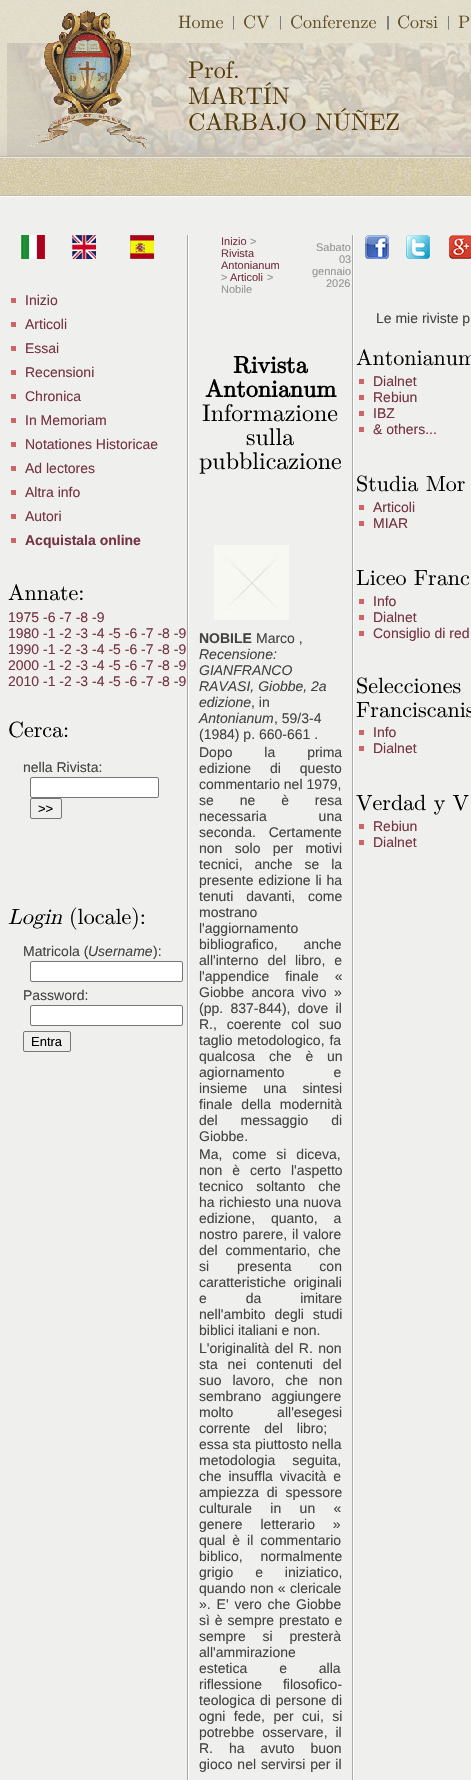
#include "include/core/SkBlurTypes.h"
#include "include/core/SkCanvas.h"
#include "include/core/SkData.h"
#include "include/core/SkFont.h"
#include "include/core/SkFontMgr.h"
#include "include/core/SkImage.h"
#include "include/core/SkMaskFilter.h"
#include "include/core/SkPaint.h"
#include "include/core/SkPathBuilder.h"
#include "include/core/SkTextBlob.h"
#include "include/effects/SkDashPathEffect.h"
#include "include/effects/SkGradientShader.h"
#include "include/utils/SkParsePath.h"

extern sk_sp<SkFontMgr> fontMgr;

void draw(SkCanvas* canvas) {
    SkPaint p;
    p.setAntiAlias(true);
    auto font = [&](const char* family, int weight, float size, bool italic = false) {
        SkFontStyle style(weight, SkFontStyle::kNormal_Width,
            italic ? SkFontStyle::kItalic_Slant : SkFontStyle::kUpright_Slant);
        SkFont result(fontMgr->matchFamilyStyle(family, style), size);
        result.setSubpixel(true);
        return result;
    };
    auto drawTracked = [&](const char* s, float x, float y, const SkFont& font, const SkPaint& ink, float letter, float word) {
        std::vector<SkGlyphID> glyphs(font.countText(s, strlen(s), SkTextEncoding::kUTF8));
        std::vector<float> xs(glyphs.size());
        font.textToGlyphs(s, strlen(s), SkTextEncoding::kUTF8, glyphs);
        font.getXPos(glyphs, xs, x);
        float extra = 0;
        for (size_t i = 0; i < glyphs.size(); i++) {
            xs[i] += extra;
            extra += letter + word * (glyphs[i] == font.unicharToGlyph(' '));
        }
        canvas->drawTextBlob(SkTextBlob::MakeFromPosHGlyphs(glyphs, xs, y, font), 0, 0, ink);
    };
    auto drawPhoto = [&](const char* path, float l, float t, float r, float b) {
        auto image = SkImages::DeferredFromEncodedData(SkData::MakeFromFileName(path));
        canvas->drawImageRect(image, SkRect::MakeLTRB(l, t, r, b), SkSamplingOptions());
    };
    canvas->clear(0xFFEFEFED);
    drawPhoto("media/1.png", 0, 0, 471, 197);
    drawPhoto("media/2.png", 0, 0, 471, 157);
    p.setColor(0xFFE4E4E4);
    canvas->drawRect(SkRect::MakeLTRB(0, 157, 471, 158), p);
    auto font1 = font("Latin Modern Roman", 400, 18);
    p.setColor(0xFF624E26);
    canvas->drawString("Home", 178, 28, font1, p);
    drawPhoto("media/3.png", 233, 15, 234, 30);
    canvas->drawString("CV", 243, 28, font1, p);
    drawPhoto("media/3.png", 280, 15, 281, 30);
    canvas->drawString("Conferenze", 290, 28, font1, p);
    drawPhoto("media/4.png", 387, 15, 389, 30);
    canvas->drawString("Corsi", 397, 28, font1, p);
    drawPhoto("media/3.png", 448, 15, 449, 30);
    canvas->drawString("P", 458, 28, font1, p);
    drawPhoto("media/6.png", 7, 43, 471, 155);
    drawPhoto("media/5.png", 7, 41, 471, 156);
    drawPhoto("media/7.png", 28, 10, 147, 149);
    auto font2 = font("Latin Modern Roman", 400, 24);
    p.setColor(0xFF533A09);
    {
        const struct { const char* s; float x, y; } items[] = {
            {"Prof.", 188, 78},
            {"MARTÍN", 188, 104},
            {"CARBAJO NÚÑEZ", 188, 130},
        };
        for (auto [s, x, y] : items) {
            canvas->drawString(s, x, y, font2, p);
        }
    }
    drawPhoto("media/8.png", 187, 235, 189, 1780);
    drawPhoto("media/9.png", 21, 235, 45, 259);
    drawPhoto("media/10.png", 72, 235, 96, 259);
    drawPhoto("media/11.png", 130, 235, 154, 259);
    p.setColor(0xFFCC6666);
    canvas->drawRect(SkRect::MakeLTRB(11, 298, 16, 303), p);
    auto font3 = font("Liberation Sans", 400, 14);
    p.setColor(0xFF763442);
    canvas->drawString("Inizio", 25, 305, font3, p);
    p.setColor(0xFFCC6666);
    canvas->drawRect(SkRect::MakeLTRB(11, 322, 16, 327), p);
    p.setColor(0xFF763442);
    canvas->drawString("Articoli", 25, 329, font3, p);
    p.setColor(0xFFCC6666);
    canvas->drawRect(SkRect::MakeLTRB(11, 346, 16, 351), p);
    p.setColor(0xFF763442);
    canvas->drawString("Essai", 25, 353, font3, p);
    p.setColor(0xFFCC6666);
    canvas->drawRect(SkRect::MakeLTRB(11, 370, 16, 375), p);
    p.setColor(0xFF763442);
    canvas->drawString("Recensioni", 25, 377, font3, p);
    p.setColor(0xFFCC6666);
    canvas->drawRect(SkRect::MakeLTRB(11, 394, 16, 399), p);
    p.setColor(0xFF763442);
    canvas->drawString("Chronica", 25, 401, font3, p);
    p.setColor(0xFFCC6666);
    canvas->drawRect(SkRect::MakeLTRB(11, 418, 16, 423), p);
    p.setColor(0xFF763442);
    canvas->drawString("In Memoriam", 25, 425, font3, p);
    p.setColor(0xFFCC6666);
    canvas->drawRect(SkRect::MakeLTRB(11, 442, 16, 447), p);
    p.setColor(0xFF763442);
    canvas->drawString("Notationes Historicae", 25, 449, font3, p);
    p.setColor(0xFFCC6666);
    canvas->drawRect(SkRect::MakeLTRB(11, 466, 16, 471), p);
    p.setColor(0xFF763442);
    canvas->drawString("Ad lectores", 25, 473, font3, p);
    p.setColor(0xFFCC6666);
    canvas->drawRect(SkRect::MakeLTRB(11, 490, 16, 495), p);
    p.setColor(0xFF763442);
    canvas->drawString("Altra info", 25, 497, font3, p);
    p.setColor(0xFFCC6666);
    canvas->drawRect(SkRect::MakeLTRB(11, 514, 16, 519), p);
    p.setColor(0xFF763442);
    canvas->drawString("Autori", 25, 521, font3, p);
    p.setColor(0xFFCC6666);
    canvas->drawRect(SkRect::MakeLTRB(11, 538, 16, 543), p);
    auto font4 = font("Liberation Sans", 700, 14);
    p.setColor(0xFF763442);
    canvas->drawString("Acquistala online", 25, 545, font4, p);
    auto font5 = font("Latin Modern Roman", 400, 22);
    p.setColor(0xFF000000);
    canvas->drawString("Annate:", 8, 600, font5, p);
    p.setColor(0xFF763442);
    {
        const struct { const char* s; float x, y; } items[] = {
            {"1975 -6 -7 -8 -9", 8, 622},
            {"1980 -1 -2 -3 -4 -5 -6 -7 -8 -9", 8, 638},
            {"1990 -1 -2 -3 -4 -5 -6 -7 -8 -9", 8, 654},
            {"2000 -1 -2 -3 -4 -5 -6 -7 -8 -9", 8, 670},
            {"2010 -1 -2 -3 -4 -5 -6 -7 -8 -9", 8, 686},
        };
        for (auto [s, x, y] : items) {
            canvas->drawString(s, x, y, font3, p);
        }
    }
    p.setColor(0xFF000000);
    canvas->drawString("Cerca:", 8, 737, font5, p);
    p.setColor(0xFF434343);
    canvas->drawString("nella Rivista:", 23, 772, font3, p);
    p.setColor(0xFFFFFFFF);
    canvas->drawRoundRect(SkRect::MakeLTRB(30.5f, 777.5f, 158.5f, 797.5f), 1.5f, 1.5f, p);
    p.setStyle(SkPaint::kStroke_Style);
    p.setStrokeWidth(1);
    p.setColor(0xFF767676);
    canvas->drawRoundRect(SkRect::MakeLTRB(30.5f, 777.5f, 158.5f, 797.5f), 1.5f, 1.5f, p);
    canvas->drawRoundRect(SkRect::MakeLTRB(30.5f, 798.5f, 61.5f, 818.5f), 1.5f, 1.5f, p);
    auto font6 = font("Liberation Sans", 400, 13);
    p.setStyle(SkPaint::kFill_Style);
    p.setColor(0xFF000000);
    canvas->drawString(">>", 38, 813, font6, p);
    auto font7 = font("Latin Modern Roman", 400, 22, true);
    canvas->drawString("Login", 8, 924, font7, p);
    canvas->drawString("(locale):", 69, 924, font5, p);
    p.setColor(0xFF434343);
    canvas->drawString("Matricola (", 23, 956, font3, p);
    auto font8 = font("Liberation Sans", 400, 14, true);
    canvas->drawString("Username", 88, 956, font8, p);
    canvas->drawString("):", 153, 956, font3, p);
    p.setColor(0xFFFFFFFF);
    canvas->drawRoundRect(SkRect::MakeLTRB(30.5f, 961.5f, 182.5f, 981.5f), 1.5f, 1.5f, p);
    p.setStyle(SkPaint::kStroke_Style);
    p.setColor(0xFF767676);
    canvas->drawRoundRect(SkRect::MakeLTRB(30.5f, 961.5f, 182.5f, 981.5f), 1.5f, 1.5f, p);
    p.setStyle(SkPaint::kFill_Style);
    p.setColor(0xFF434343);
    canvas->drawString("Password:", 23, 1000, font3, p);
    p.setColor(0xFFFFFFFF);
    canvas->drawRoundRect(SkRect::MakeLTRB(30.5f, 1005.5f, 182.5f, 1025.5f), 1.5f, 1.5f, p);
    p.setStyle(SkPaint::kStroke_Style);
    p.setColor(0xFF767676);
    canvas->drawRoundRect(SkRect::MakeLTRB(30.5f, 1005.5f, 182.5f, 1025.5f), 1.5f, 1.5f, p);
    canvas->drawRoundRect(SkRect::MakeLTRB(23.5f, 1031.5f, 70.5f, 1051.5f), 1.5f, 1.5f, p);
    p.setStyle(SkPaint::kFill_Style);
    p.setColor(0xFF000000);
    canvas->drawString("Entra", 31, 1046, font6, p);
    auto font9 = font("Liberation Sans", 400, 11);
    p.setColor(0xFF763442);
    canvas->drawString("Inizio", 221, 245, font9, p);
    p.setColor(0xFF959595);
    canvas->drawString(">", 250, 245, font9, p);
    p.setColor(0xFF763442);
    canvas->drawString("Rivista", 221, 257, font9, p);
    canvas->drawString("Antonianum", 221, 269, font9, p);
    p.setColor(0xFF959595);
    canvas->drawString(">", 221, 281, font9, p);
    p.setColor(0xFF763442);
    canvas->drawString("Articoli", 230, 281, font9, p);
    p.setColor(0xFF959595);
    {
        const struct { const char* s; float x, y; } items[] = {
            {">", 267, 281},
            {"Nobile", 221, 293},
            {"Sabato", 316, 251},
            {"03", 339, 263},
            {"gennaio", 312, 275},
            {"2026", 326, 287},
        };
        for (auto [s, x, y] : items) {
            canvas->drawString(s, x, y, font9, p);
        }
    }
    auto font10 = font("Latin Modern Roman", 700, 24);
    p.setColor(0xFF000000);
    canvas->drawString("Rivista", 233, 373, font10, p);
    canvas->drawString("Antonianum", 205, 397, font10, p);
    {
        const struct { const char* s; float x, y; } items[] = {
            {"Informazione", 202, 421},
            {"sulla", 246, 445},
            {"pubblicazione", 199, 469},
        };
        for (auto [s, x, y] : items) {
            canvas->drawString(s, x, y, font2, p);
        }
    }
    drawPhoto("media/12.png", 214, 545, 289, 620);
    p.setColor(0xFF434343);
    canvas->drawString("NOBILE", 199, 643, font4, p);
    canvas->drawString("Marco ,", 256, 643, font3, p);
    {
        const struct { const char* s; float x, y; } items[] = {
            {"Recensione:", 199, 659},
            {"GIANFRANCO", 199, 675},
            {"RAVASI, Giobbe, 2a", 199, 691},
            {"edizione", 199, 707},
        };
        for (auto [s, x, y] : items) {
            canvas->drawString(s, x, y, font8, p);
        }
    }
    canvas->drawString(", in", 251, 707, font3, p);
    canvas->drawString("Antonianum", 199, 723, font8, p);
    canvas->drawString(", 59/3-4", 274, 723, font3, p);
    canvas->drawString("(1984) p. 660-661 .", 199, 739, font3, p);
    drawTracked("Dopo la prima", 199, 757, font3, p, 0, 28);
    drawTracked("edizione di questo", 199, 773, font3, p, 0, 15);
    canvas->drawString("commentario nel 1979,", 199, 789, font3, p);
    drawTracked("se ne è resa", 199, 805, font3, p, 0, 22);
    drawTracked("necessaria una", 199, 821, font3, p, 0, 48);
    drawTracked("seconda. Certamente", 199, 837, font3, p, 0, 9);
    drawTracked("non solo per motivi", 199, 853, font3, p, 0, 8.5f);
    drawTracked("tecnici, anche se la", 199, 869, font3, p, 0, 8);
    drawTracked("presente edizione li ha", 199, 885, font3, p, 0, 1);
    drawTracked("tenuti davanti, come", 199, 901, font3, p, 0, 9);
    canvas->drawString("mostrano", 199, 917, font3, p);
    canvas->drawString("l'aggiornamento", 199, 933, font3, p);
    drawTracked("bibliografico, anche", 199, 949, font3, p, 0, 22);
    drawTracked("all'interno del libro, e", 199, 965, font3, p, 0, 5);
    drawTracked("l'appendice finale «", 199, 981, font3, p, 0, 12);
    drawTracked("Giobbe ancora vivo »", 199, 997, font3, p, 0, 3.5f);
    drawTracked("(pp. 837-844), dove il", 199, 1013, font3, p, 0, 3.5f);
    drawTracked("R., coerente col suo", 199, 1029, font3, p, 0, 6);
    drawTracked("taglio metodologico, fa", 199, 1045, font3, p, 0, 1);
    drawTracked("qualcosa che è un", 199, 1061, font3, p, 0, 10);
    drawTracked("agiornamento e", 199, 1077, font3, p, 0, 45);
    drawTracked("insieme una sintesi", 199, 1093, font3, p, 0, 12);
    drawTracked("finale della modernità", 199, 1109, font3, p, 0, 5);
    drawTracked("del messaggio di", 199, 1125, font3, p, 0, 19);
    canvas->drawString("Giobbe.", 199, 1141, font3, p);
    drawTracked("Ma, come si diceva,", 199, 1159, font3, p, 0, 6);
    drawTracked("non è certo l'aspetto", 199, 1175, font3, p, 0, 6);
    drawTracked("tecnico soltanto che", 199, 1191, font3, p, 0, 9);
    drawTracked("ha richiesto una nuova", 199, 1207, font3, p, 0, 0.5f);
    drawTracked("edizione, quanto, a", 199, 1223, font3, p, 0, 12);
    drawTracked("nostro parere, il valore", 199, 1239, font3, p, 0, 1);
    drawTracked("del commentario, che", 199, 1255, font3, p, 0, 4);
    drawTracked("si presenta con", 199, 1271, font3, p, 0, 24);
    drawTracked("caratteristiche originali", 199, 1287, font3, p, 0, 3.5f);
    drawTracked("e da imitare", 199, 1303, font3, p, 0, 35);
    drawTracked("nell'ambito degli studi", 199, 1319, font3, p, 0, 5);
    canvas->drawString("biblici italiani e non.", 199, 1335, font3, p);
    drawTracked("L'originalità del R. non", 199, 1353, font3, p, 0, 1.5f);
    drawTracked("sta nei contenuti del", 199, 1369, font3, p, 0, 6);
    drawTracked("suo lavoro, che non", 199, 1385, font3, p, 0, 7);
    drawTracked("sembrano aggiungere", 199, 1401, font3, p, 0, 6);
    drawTracked("molto all'esegesi", 199, 1417, font3, p, 0, 40);
    drawTracked("corrente del libro;", 199, 1433, font3, p, 0, 10);
    canvas->drawString("essa sta piuttosto nella", 199, 1449, font3, p);
    drawTracked("metodologia seguita,", 199, 1465, font3, p, 0, 13);
    drawTracked("che insuffla vivacità e", 199, 1481, font3, p, 0, 3);
    drawTracked("ampiezza di spessore", 199, 1497, font3, p, 0, 4);
    drawTracked("culturale in un «", 199, 1513, font3, p, 0, 14.5f);
    drawTracked("genere letterario »", 199, 1529, font3, p, 0, 14);
    drawTracked("qual è il commentario", 199, 1545, font3, p, 0, 3);
    drawTracked("biblico, normalmente", 199, 1561, font3, p, 0, 14);
    drawTracked("grigio e iniziatico,", 199, 1577, font3, p, 0, 18);
    drawTracked("quando non « clericale", 199, 1593, font3, p, 0, 0.5f);
    drawTracked("». E' vero che Giobbe", 199, 1609, font3, p, 0, 2);
    drawTracked("sì è sempre prestato e", 199, 1625, font3, p, 0, 1);
    drawTracked("sempre si presterà", 199, 1641, font3, p, 0, 13);
    canvas->drawString("all'ammirazione", 199, 1657, font3, p);
    drawTracked("estetica e alla", 199, 1673, font3, p, 0, 28);
    drawTracked("riflessione filosofico-", 199, 1689, font3, p, 0, 17);
    drawTracked("teologica di persone di", 199, 1705, font3, p, 0, 1);
    drawTracked("ogni fede, per cui, si", 199, 1721, font3, p, 0, 4.5f);
    drawTracked("potrebbe osservare, il", 199, 1737, font3, p, 0, 4);
    drawTracked("R. ha avuto buon", 199, 1753, font3, p, 0, 12);
    drawTracked("gioco nel servirsi per il", 199, 1769, font3, p, 0, 1);
    drawPhoto("media/8.png", 352, 235, 354, 1780);
    drawPhoto("media/13.png", 365, 235, 389, 259);
    drawPhoto("media/14.png", 406, 235, 430, 259);
    drawPhoto("media/15.png", 449, 235, 471, 259);
    canvas->drawString("Le mie riviste p", 376, 323, font3, p);
    p.setColor(0xFF000000);
    canvas->drawString("Antonianum", 356, 365, font5, p);
    p.setColor(0xFFCC6666);
    canvas->drawRect(SkRect::MakeLTRB(359, 379, 364, 384), p);
    p.setColor(0xFF763442);
    canvas->drawString("Dialnet", 373, 386, font3, p);
    p.setColor(0xFFCC6666);
    canvas->drawRect(SkRect::MakeLTRB(359, 395, 364, 400), p);
    p.setColor(0xFF763442);
    canvas->drawString("Rebiun", 373, 402, font3, p);
    p.setColor(0xFFCC6666);
    canvas->drawRect(SkRect::MakeLTRB(359, 411, 364, 416), p);
    p.setColor(0xFF763442);
    canvas->drawString("IBZ", 373, 418, font3, p);
    p.setColor(0xFFCC6666);
    canvas->drawRect(SkRect::MakeLTRB(359, 427, 364, 432), p);
    p.setColor(0xFF763442);
    canvas->drawString("& others...", 373, 434, font3, p);
    p.setColor(0xFF000000);
    canvas->drawString("Studia Mor", 356, 491, font5, p);
    p.setColor(0xFFCC6666);
    canvas->drawRect(SkRect::MakeLTRB(359, 505, 364, 510), p);
    p.setColor(0xFF763442);
    canvas->drawString("Articoli", 373, 512, font3, p);
    p.setColor(0xFFCC6666);
    canvas->drawRect(SkRect::MakeLTRB(359, 521, 364, 526), p);
    p.setColor(0xFF763442);
    canvas->drawString("MIAR", 373, 528, font3, p);
    p.setColor(0xFF000000);
    canvas->drawString("Liceo Franc", 356, 585, font5, p);
    p.setColor(0xFFCC6666);
    canvas->drawRect(SkRect::MakeLTRB(359, 599, 364, 604), p);
    p.setColor(0xFF763442);
    canvas->drawString("Info", 373, 606, font3, p);
    p.setColor(0xFFCC6666);
    canvas->drawRect(SkRect::MakeLTRB(359, 615, 364, 620), p);
    p.setColor(0xFF763442);
    canvas->drawString("Dialnet", 373, 622, font3, p);
    p.setColor(0xFFCC6666);
    canvas->drawRect(SkRect::MakeLTRB(359, 631, 364, 636), p);
    p.setColor(0xFF763442);
    canvas->drawString("Consiglio di red", 373, 638, font3, p);
    p.setColor(0xFF000000);
    canvas->drawString("Selecciones", 356, 693, font5, p);
    canvas->drawString("Franciscanis", 356, 717, font5, p);
    p.setColor(0xFFCC6666);
    canvas->drawRect(SkRect::MakeLTRB(359, 730, 364, 735), p);
    p.setColor(0xFF763442);
    canvas->drawString("Info", 373, 737, font3, p);
    p.setColor(0xFFCC6666);
    canvas->drawRect(SkRect::MakeLTRB(359, 746, 364, 751), p);
    p.setColor(0xFF763442);
    canvas->drawString("Dialnet", 373, 753, font3, p);
    p.setColor(0xFF000000);
    canvas->drawString("Verdad y V", 356, 810, font5, p);
    p.setColor(0xFFCC6666);
    canvas->drawRect(SkRect::MakeLTRB(359, 824, 364, 829), p);
    p.setColor(0xFF763442);
    canvas->drawString("Rebiun", 373, 831, font3, p);
    p.setColor(0xFFCC6666);
    canvas->drawRect(SkRect::MakeLTRB(359, 840, 364, 845), p);
    p.setColor(0xFF763442);
    canvas->drawString("Dialnet", 373, 847, font3, p);
}
